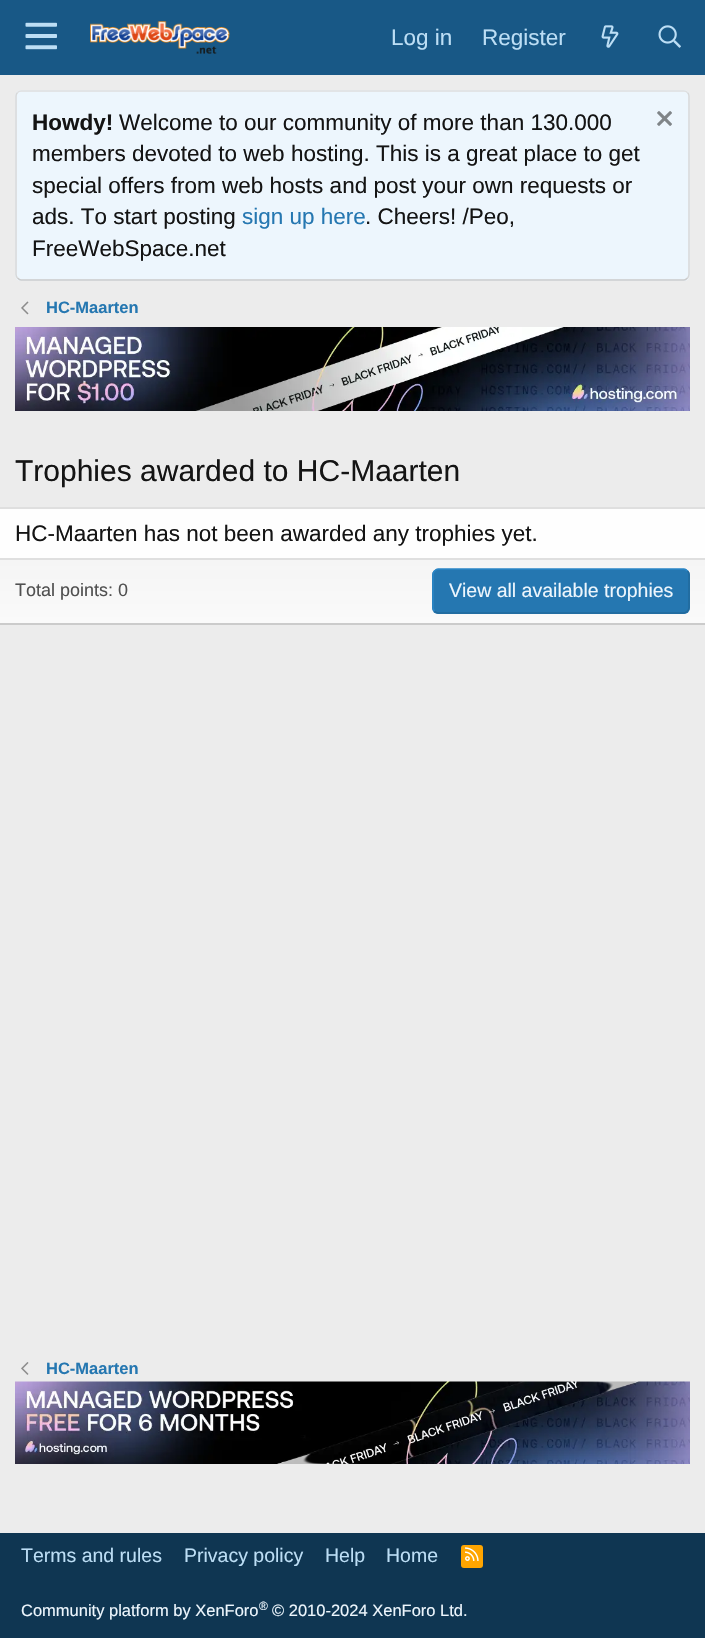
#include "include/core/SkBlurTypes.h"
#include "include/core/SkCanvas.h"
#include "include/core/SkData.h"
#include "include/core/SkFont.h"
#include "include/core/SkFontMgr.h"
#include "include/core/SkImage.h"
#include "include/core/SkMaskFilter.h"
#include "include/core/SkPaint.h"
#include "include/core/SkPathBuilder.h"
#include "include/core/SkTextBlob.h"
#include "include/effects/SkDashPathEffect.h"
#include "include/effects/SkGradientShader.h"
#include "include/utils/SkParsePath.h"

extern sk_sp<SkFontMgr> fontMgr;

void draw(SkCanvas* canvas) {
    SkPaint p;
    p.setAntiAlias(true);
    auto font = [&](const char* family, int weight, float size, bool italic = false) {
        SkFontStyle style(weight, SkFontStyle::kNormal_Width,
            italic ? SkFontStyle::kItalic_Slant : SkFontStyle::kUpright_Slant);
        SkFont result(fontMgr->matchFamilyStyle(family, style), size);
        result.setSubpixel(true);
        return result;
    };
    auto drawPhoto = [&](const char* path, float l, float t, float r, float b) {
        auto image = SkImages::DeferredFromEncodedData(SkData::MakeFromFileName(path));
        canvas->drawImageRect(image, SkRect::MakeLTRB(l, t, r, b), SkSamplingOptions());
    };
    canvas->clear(0xFFECECEC);
    p.setColor(0xFF185886);
    canvas->drawRect(SkRect::MakeLTRB(0, 0, 705, 75), p);
    drawPhoto("media/1.png", 25, 22, 57, 50);
    drawPhoto("media/2.png", 90, 21, 230, 54);
    auto font1 = font("Liberation Sans", 400, 22.5f);
    p.setColor(0xFFBCDEF5);
    canvas->drawString("Log in", 391, 45, font1, p);
    canvas->drawString("Register", 482, 45, font1, p);
    drawPhoto("media/3.png", 601, 25, 619, 48);
    drawPhoto("media/4.png", 658, 25, 681, 48);
    p.setColor(0xFFEDF6FD);
    canvas->drawRoundRect(SkRect::MakeLTRB(15, 90, 690, 281), 6, 6, p);
    p.setStyle(SkPaint::kStroke_Style);
    p.setStrokeWidth(1.5f);
    p.setColor(0xFFDFDFDF);
    canvas->drawPath(SkPathBuilder().moveTo(17.5f, 92.5f).cubicTo(18.5f, 91.5f, 19.5f, 91, 21, 91).lineTo(684, 91).cubicTo(685.5f, 91, 686.5f, 91.5f, 687.5f, 92.5f).detach(), p);
    p.setColor(0xFFD8D8D8);
    canvas->drawPath(SkPathBuilder().moveTo(687.5f, 92.5f).cubicTo(688.5f, 93.5f, 689, 94.5f, 689, 96).lineTo(689, 274.5f).cubicTo(689, 276, 688.5f, 277, 687.5f, 278).detach(), p);
    p.setColor(0xFFCBCBCB);
    canvas->drawPath(SkPathBuilder().moveTo(687.5f, 278).cubicTo(686.5f, 279, 685.5f, 280, 684, 280).lineTo(21, 280).cubicTo(19.5f, 280, 18.5f, 279, 17.5f, 278).detach(), p);
    p.setColor(0xFFD8D8D8);
    canvas->drawPath(SkPathBuilder().moveTo(17.5f, 278).cubicTo(16.5f, 277, 16, 276, 16, 274.5f).lineTo(16, 96).cubicTo(16, 94.5f, 16.5f, 93.5f, 17.5f, 92.5f).detach(), p);
    auto font2 = font("Liberation Sans", 700, 22.5f);
    p.setStyle(SkPaint::kFill_Style);
    p.setColor(0xFF141414);
    canvas->drawString("Howdy!", 32, 130, font2, p);
    canvas->drawString("Welcome to our community of more than 130.000", 119, 130, font1, p);
    drawPhoto("media/5.png", 657, 111, 672, 126);
    {
        const struct { const char* s; float x, y; } items[] = {
            {"members devoted to web hosting. This is a great place to get", 32, 161},
            {"special offers from web hosts and post your own requests or", 32, 193},
            {"ads. To start posting", 32, 224},
        };
        for (auto [s, x, y] : items) {
            canvas->drawString(s, x, y, font1, p);
        }
    }
    p.setColor(0xFF2577B1);
    canvas->drawString("sign up here", 242, 224, font1, p);
    p.setColor(0xFF141414);
    canvas->drawString(". Cheers! /Peo,", 365, 224, font1, p);
    canvas->drawString("FreeWebSpace.net", 32, 256, font1, p);
    drawPhoto("media/6.png", 21, 301, 29, 315);
    auto font3 = font("Liberation Sans", 700, 16.5f);
    p.setColor(0xFF2577B1);
    canvas->drawString("HC-Maarten", 46, 313, font3, p);
    drawPhoto("media/7.png", 15, 327, 690, 411);
    auto font4 = font("Liberation Sans", 400, 30);
    p.setColor(0xFF141414);
    canvas->drawString("Trophies awarded to HC-Maarten", 15, 481, font4, p);
    {
        const struct { float l, t, r, b; SkColor color; } items[] = {
            {0, 509, 705, 558, 0xFFFEFEFE},
            {0, 507, 705, 509, 0xFFDFDFDF},
            {0, 623, 705, 625, 0xFFCBCBCB},
        };
        for (auto [l, t, r, b, color] : items) {
            p.setColor(color);
            canvas->drawRect(SkRect::MakeLTRB(l, t, r, b), p);
        }
    }
    p.setColor(0xFF141414);
    canvas->drawString("HC-Maarten has not been awarded any trophies yet.", 15, 541, font1, p);
    {
        const SkColor colors[] = {0xFFF5F5F5, 0xFFFAFAFA};
        const float stops[] = {0, 1};
        const SkPoint ends[] = {{353, 560}, {353, 623}};
        p.setShader(SkGradientShader::MakeLinear(ends, colors, stops, 2, SkTileMode::kClamp));
        p.setAlpha(255);
    }
    canvas->drawRect(SkRect::MakeLTRB(0, 560, 705, 623), p);
    p.setShader(nullptr);
    p.setColor(0xFFDFDFDF);
    canvas->drawRect(SkRect::MakeLTRB(0, 558, 705, 560), p);
    auto font5 = font("Liberation Sans", 400, 18);
    p.setColor(0xFF505050);
    canvas->drawString("Total points: 0", 15, 596, font5, p);
    p.setColor(0xFF2577B1);
    canvas->drawRoundRect(SkRect::MakeLTRB(432, 569, 690, 614), 6, 6, p);
    p.setStyle(SkPaint::kStroke_Style);
    p.setColor(0xFF21699C);
    canvas->drawPath(SkPathBuilder().moveTo(687.5f, 571).cubicTo(688.5f, 572, 689, 573, 689, 574.5f).lineTo(689, 607.5f).cubicTo(689, 609, 688.5f, 610, 687.5f, 611).cubicTo(686.5f, 612, 685.5f, 613, 684, 613).lineTo(438, 613).cubicTo(436.5f, 613, 435.5f, 612, 434.5f, 611).detach(), p);
    p.setColor(0xFF2985C6);
    canvas->drawPath(SkPathBuilder().moveTo(434.5f, 611).cubicTo(433.5f, 610, 433, 609, 433, 607.5f).lineTo(433, 574.5f).cubicTo(433, 573, 433.5f, 572, 434.5f, 571).cubicTo(435.5f, 570, 436.5f, 569, 438, 569).lineTo(684, 569).cubicTo(685.5f, 569, 686.5f, 570, 687.5f, 571).detach(), p);
    auto font6 = font("Liberation Sans", 400, 19.5f);
    p.setStyle(SkPaint::kFill_Style);
    p.setColor(0xFFEDF6FD);
    canvas->drawString("View all available trophies", 449, 597, font6, p);
    drawPhoto("media/8.png", 21, 1362, 29, 1375);
    p.setColor(0xFF2577B1);
    canvas->drawString("HC-Maarten", 46, 1374, font3, p);
    drawPhoto("media/9.png", 15, 1381, 690, 1464);
    p.setColor(0xFF0F3652);
    canvas->drawRect(SkRect::MakeLTRB(0, 1533, 705, 1638), p);
    p.setColor(0xFFBCDEF5);
    {
        const struct { const char* s; float x, y; } items[] = {
            {"Terms and rules", 21, 1562},
            {"Privacy policy", 184, 1562},
            {"Help", 325, 1562},
            {"Home", 386, 1562},
        };
        for (auto [s, x, y] : items) {
            canvas->drawString(s, x, y, font6, p);
        }
    }
    p.setColor(0xFFFFA500);
    canvas->drawRoundRect(SkRect::MakeLTRB(461, 1545, 483, 1568), 3, 3, p);
    drawPhoto("media/10.png", 465, 1547, 479, 1561);
    auto font7 = font("Liberation Sans", 400, 16.5f);
    p.setColor(0xFFEDF6FD);
    canvas->drawString("Community platform by XenForo", 21, 1616, font7, p);
    auto font8 = font("Liberation Sans", 400, 12);
    canvas->drawString("®", 259, 1610, font8, p);
    canvas->drawString("© 2010-2024 XenForo Ltd.", 272, 1616, font7, p);
}
